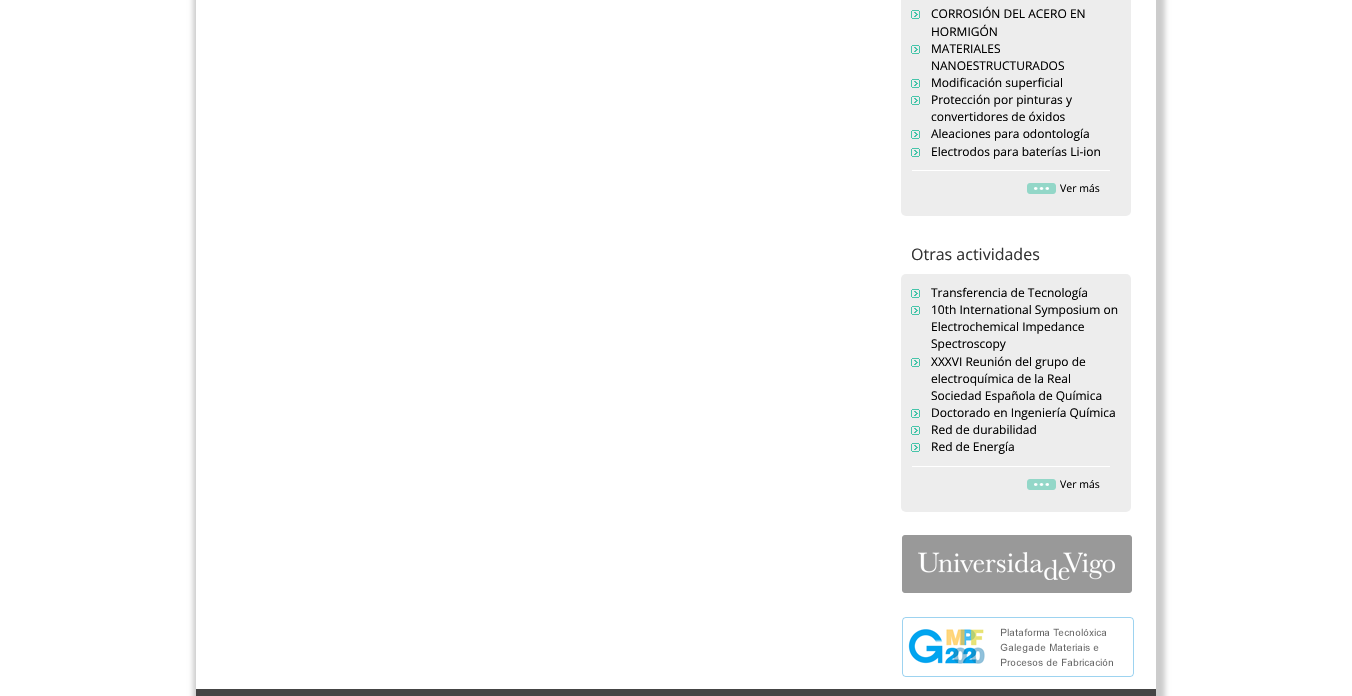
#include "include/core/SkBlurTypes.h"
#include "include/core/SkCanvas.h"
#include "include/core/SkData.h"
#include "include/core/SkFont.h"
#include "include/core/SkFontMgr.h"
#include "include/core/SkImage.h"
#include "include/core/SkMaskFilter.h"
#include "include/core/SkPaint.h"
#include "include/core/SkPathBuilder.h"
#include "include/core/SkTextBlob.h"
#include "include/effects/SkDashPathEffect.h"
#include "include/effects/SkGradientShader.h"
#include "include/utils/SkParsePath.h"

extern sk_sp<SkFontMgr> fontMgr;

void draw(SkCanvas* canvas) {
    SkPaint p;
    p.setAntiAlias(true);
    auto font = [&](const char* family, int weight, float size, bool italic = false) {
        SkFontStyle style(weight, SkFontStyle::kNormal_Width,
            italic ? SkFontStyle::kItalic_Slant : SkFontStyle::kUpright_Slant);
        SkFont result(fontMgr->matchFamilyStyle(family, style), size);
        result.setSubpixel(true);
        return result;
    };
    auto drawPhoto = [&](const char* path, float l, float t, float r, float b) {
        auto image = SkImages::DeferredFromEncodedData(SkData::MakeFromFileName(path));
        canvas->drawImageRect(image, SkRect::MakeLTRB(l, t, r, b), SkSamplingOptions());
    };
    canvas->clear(0xFFFFFFFF);
    canvas->save();
    canvas->clipPath(SkPathBuilder(SkPathFillType::kEvenOdd).moveTo(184, 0).lineTo(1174, 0).lineTo(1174, 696).lineTo(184, 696).close().moveTo(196, -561).lineTo(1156, -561).lineTo(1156, 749).lineTo(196, 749).close().detach(), true);
    p.setColor(0xFFCCCCCC);
    p.setMaskFilter(SkMaskFilter::MakeBlur(kNormal_SkBlurStyle, 2.5f));
    canvas->drawRect(SkRect::MakeLTRB(193, -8, 1165, 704), p);
    p.setMaskFilter(nullptr);
    canvas->restore();
    p.setColor(0xFFEDEDED);
    canvas->drawRoundRect(SkRect::MakeLTRB(901, -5, 1131, 216), 5, 5, p);
    drawPhoto("media/1.png", 911, 10, 920, 19);
    auto font1 = font("Open Sans", 400, 12);
    p.setColor(0xFF000000);
    canvas->drawString("CORROSIÓN DEL ACERO EN", 931, 18, font1, p);
    canvas->drawString("HORMIGÓN", 931, 36, font1, p);
    drawPhoto("media/1.png", 911, 45, 920, 54);
    canvas->drawString("MATERIALES", 931, 53, font1, p);
    canvas->drawString("NANOESTRUCTURADOS", 931, 70, font1, p);
    drawPhoto("media/1.png", 911, 79, 920, 88);
    canvas->drawString("Modificación superficial", 931, 87, font1, p);
    drawPhoto("media/1.png", 911, 96, 920, 105);
    canvas->drawString("Protección por pinturas y", 931, 104, font1, p);
    canvas->drawString("convertidores de óxidos", 931, 121, font1, p);
    drawPhoto("media/1.png", 911, 130, 920, 139);
    canvas->drawString("Aleaciones para odontología", 931, 138, font1, p);
    drawPhoto("media/1.png", 911, 148, 920, 157);
    canvas->drawString("Electrodos para baterías Li-ion", 931, 156, font1, p);
    p.setColor(0xFFFFFFFF);
    canvas->drawRect(SkRect::MakeLTRB(912, 170, 1110, 171), p);
    drawPhoto("media/2.png", 1027, 183, 1056, 194);
    auto font2 = font("Open Sans", 400, 10.5f);
    p.setColor(0xFF000000);
    canvas->drawString("Ver más", 1060, 192, font2, p);
    auto font3 = font("Open Sans", 400, 16);
    p.setColor(0xFF333333);
    canvas->drawString("Otras actividades", 911, 260, font3, p);
    p.setColor(0xFFEDEDED);
    canvas->drawRoundRect(SkRect::MakeLTRB(901, 274, 1131, 512), 5, 5, p);
    drawPhoto("media/1.png", 911, 289, 920, 298);
    p.setColor(0xFF000000);
    canvas->drawString("Transferencia de Tecnología", 931, 297, font1, p);
    drawPhoto("media/1.png", 911, 306, 920, 315);
    {
        const struct { const char* s; float x, y; } items[] = {
            {"10th International Symposium on", 931, 314},
            {"Electrochemical Impedance", 931, 331},
            {"Spectroscopy", 931, 348},
        };
        for (auto [s, x, y] : items) {
            canvas->drawString(s, x, y, font1, p);
        }
    }
    drawPhoto("media/1.png", 911, 358, 920, 367);
    {
        const struct { const char* s; float x, y; } items[] = {
            {"XXXVI Reunión del grupo de", 931, 366},
            {"electroquímica de la Real", 931, 383},
            {"Sociedad Española de Química", 931, 400},
        };
        for (auto [s, x, y] : items) {
            canvas->drawString(s, x, y, font1, p);
        }
    }
    drawPhoto("media/1.png", 911, 409, 920, 418);
    canvas->drawString("Doctorado en Ingeniería Química", 931, 417, font1, p);
    drawPhoto("media/1.png", 911, 426, 920, 435);
    canvas->drawString("Red de durabilidad", 931, 434, font1, p);
    drawPhoto("media/1.png", 911, 443, 920, 452);
    canvas->drawString("Red de Energía", 931, 451, font1, p);
    p.setColor(0xFFFFFFFF);
    canvas->drawRect(SkRect::MakeLTRB(912, 466, 1110, 467), p);
    drawPhoto("media/2.png", 1027, 479, 1056, 490);
    p.setColor(0xFF000000);
    canvas->drawString("Ver más", 1060, 488, font2, p);
    drawPhoto("media/3.png", 902, 535, 1132, 593);
    drawPhoto("media/4.png", 902, 617, 1134, 677);
    p.setColor(0xFF454545);
    canvas->drawRect(SkRect::MakeLTRB(196, 689, 1156, 696), p);
}
